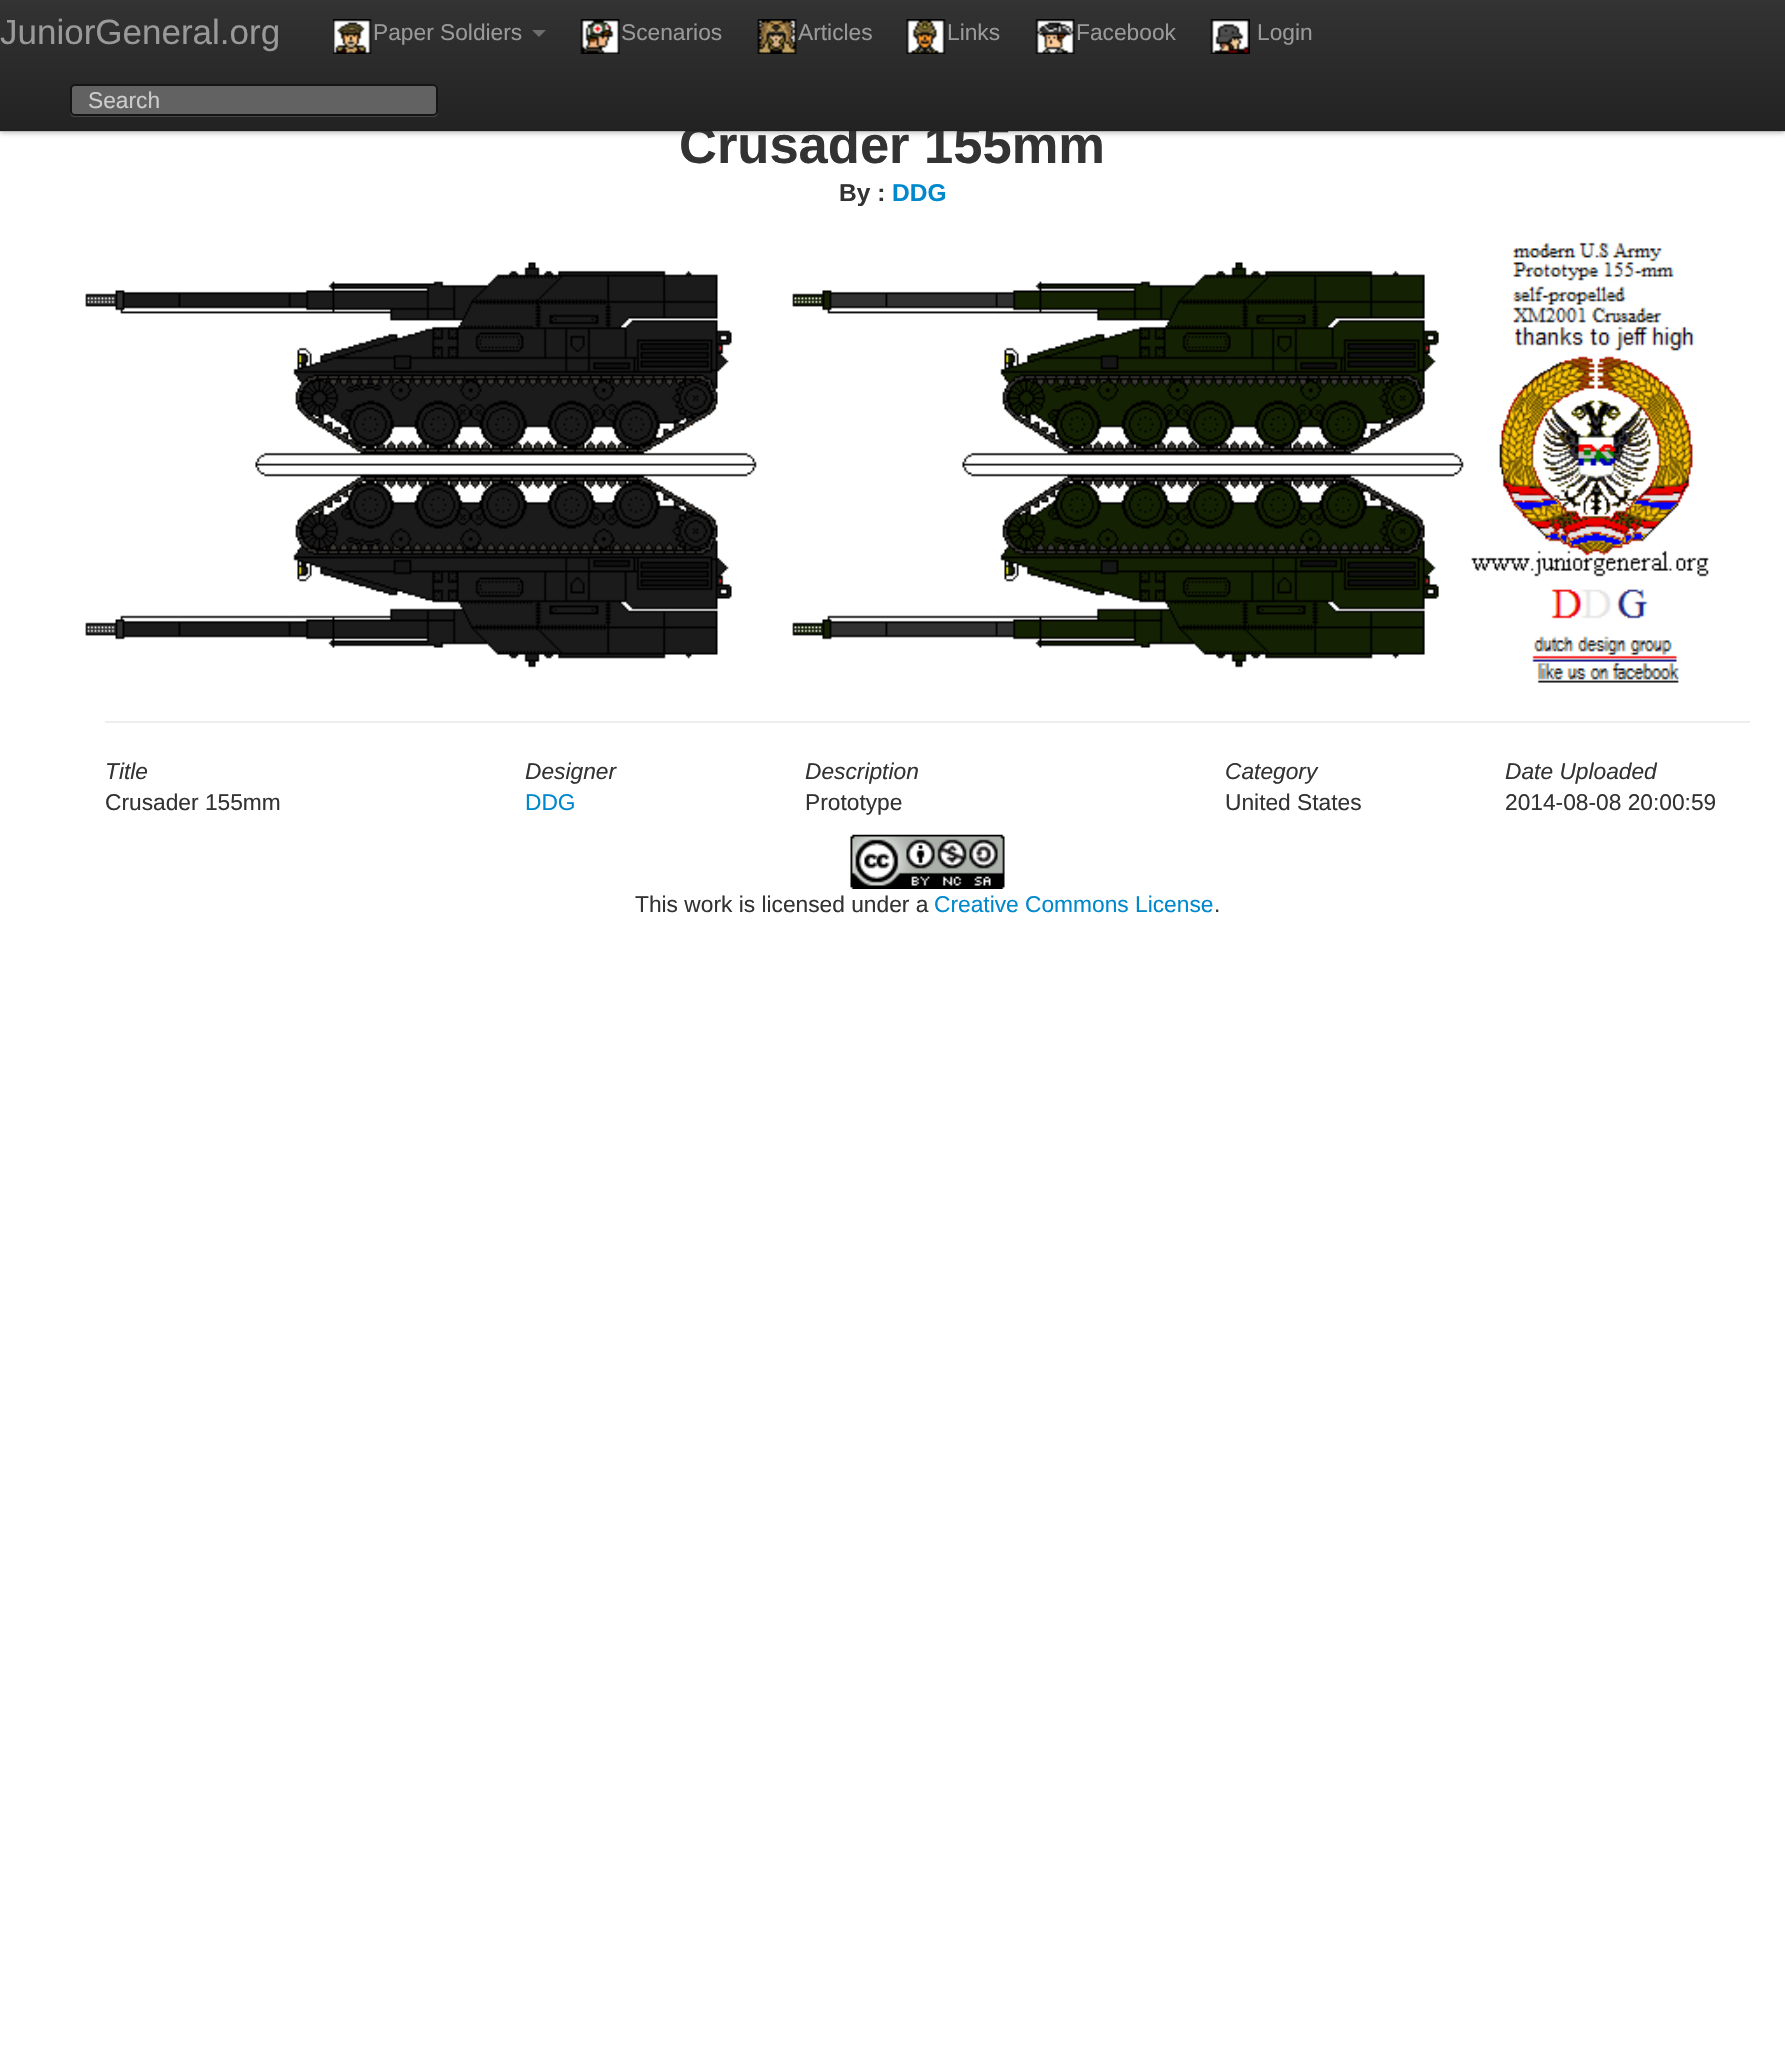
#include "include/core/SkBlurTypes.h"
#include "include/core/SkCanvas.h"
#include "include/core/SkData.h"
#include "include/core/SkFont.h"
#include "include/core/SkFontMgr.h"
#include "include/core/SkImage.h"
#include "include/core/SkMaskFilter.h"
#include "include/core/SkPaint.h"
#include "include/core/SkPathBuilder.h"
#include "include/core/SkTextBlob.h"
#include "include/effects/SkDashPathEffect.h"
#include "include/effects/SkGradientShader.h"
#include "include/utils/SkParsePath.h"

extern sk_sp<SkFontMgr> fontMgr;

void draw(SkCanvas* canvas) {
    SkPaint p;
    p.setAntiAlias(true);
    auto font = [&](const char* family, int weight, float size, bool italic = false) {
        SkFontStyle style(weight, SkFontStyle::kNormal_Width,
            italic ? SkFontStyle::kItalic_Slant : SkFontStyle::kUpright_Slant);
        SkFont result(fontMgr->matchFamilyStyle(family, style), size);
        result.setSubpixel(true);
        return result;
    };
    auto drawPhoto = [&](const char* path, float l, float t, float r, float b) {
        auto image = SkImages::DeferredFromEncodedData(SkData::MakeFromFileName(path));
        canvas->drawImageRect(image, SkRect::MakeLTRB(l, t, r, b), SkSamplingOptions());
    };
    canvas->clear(0xFFFFFFFF);
    p.setColor(0x40000000);
    p.setMaskFilter(SkMaskFilter::MakeBlur(kNormal_SkBlurStyle, 2.5f));
    canvas->drawRect(SkRect::MakeLTRB(0, 2, 1785, 133), p);
    p.setMaskFilter(nullptr);
    auto font1 = font("Liberation Sans", 700, 52.5f);
    p.setColor(0xFF333333);
    canvas->drawString("Crusader 155mm", 679, 163, font1, p);
    {
        const SkColor colors[] = {0xFF333333, 0xFF222222};
        const float stops[] = {0, 1};
        const SkPoint ends[] = {{893, 0}, {893, 131}};
        p.setShader(SkGradientShader::MakeLinear(ends, colors, stops, 2, SkTileMode::kClamp));
        p.setAlpha(255);
    }
    canvas->drawRect(SkRect::MakeLTRB(0, 0, 1785, 131), p);
    p.setShader(nullptr);
    p.setColor(0x1A000000);
    canvas->drawRect(SkRect::MakeLTRB(0, 130, 1785, 132), p);
    auto font2 = font("Liberation Sans", 400, 35);
    p.setColor(0xFF999999);
    canvas->drawString("JuniorGeneral.org", 0, 44, font2, p);
    drawPhoto("media/1.png", 333, 19, 372, 54);
    auto font3 = font("Liberation Sans", 400, 22.75f);
    canvas->drawString("Paper Soldiers", 373, 40, font3, p);
    p.setColor(0xFF6D6D6D);
    canvas->drawPath(SkPathBuilder().moveTo(532, 30).lineTo(546, 30).lineTo(539, 37).close().detach(), p);
    drawPhoto("media/2.png", 580, 19, 620, 54);
    p.setColor(0xFF999999);
    canvas->drawString("Scenarios", 621, 40, font3, p);
    drawPhoto("media/3.png", 757, 19, 797, 54);
    canvas->drawString("Articles", 798, 40, font3, p);
    drawPhoto("media/4.png", 906, 19, 946, 54);
    canvas->drawString("Links", 947, 40, font3, p);
    drawPhoto("media/5.png", 1035, 19, 1075, 54);
    canvas->drawString("Facebook", 1076, 40, font3, p);
    drawPhoto("media/6.png", 1210, 19, 1250, 54);
    canvas->drawString("Login", 1257, 40, font3, p);
    p.setColor(0x26FFFFFF);
    canvas->drawPath(SkPathBuilder().moveTo(70, 110).lineTo(70, 112).cubicTo(70, 115, 72, 117, 75, 117).lineTo(433, 117).cubicTo(436, 117, 438, 115, 438, 112).lineTo(438, 91).lineTo(437, 89).lineTo(438, 100).cubicTo(438, 104, 440, 115, 432, 116).lineTo(75, 116).cubicTo(72, 115, 70, 113, 70, 110).close().detach(), p);
    p.setColor(0xFF626262);
    canvas->drawRoundRect(SkRect::MakeLTRB(71, 85, 437, 115), 4, 4, p);
    p.setStyle(SkPaint::kStroke_Style);
    p.setStrokeWidth(2);
    p.setColor(0xFF151515);
    canvas->drawRoundRect(SkRect::MakeLTRB(71, 85, 437, 115), 4, 4, p);
    p.setStyle(SkPaint::kFill_Style);
    p.setColor(0xFFCCCCCC);
    canvas->drawString("Search", 88, 108, font3, p);
    auto font4 = font("Liberation Sans", 700, 24.5f);
    p.setColor(0xFF333333);
    canvas->drawString("By :", 839, 201, font4, p);
    p.setColor(0xFF0088CC);
    canvas->drawString("DDG", 892, 201, font4, p);
    drawPhoto("media/7.png", 85, 242, 1709, 683);
    p.setColor(0xFFEEEEEE);
    canvas->drawRect(SkRect::MakeLTRB(105, 721, 1750, 723), p);
    auto font5 = font("Liberation Sans", 400, 22.75f, true);
    p.setColor(0xFF333333);
    canvas->drawString("Title", 105, 779, font5, p);
    canvas->drawString("Crusader 155mm", 105, 810, font3, p);
    canvas->drawString("Designer", 525, 779, font5, p);
    p.setColor(0xFF0088CC);
    canvas->drawString("DDG", 525, 810, font3, p);
    p.setColor(0xFF333333);
    canvas->drawString("Description", 805, 779, font5, p);
    canvas->drawString("Prototype", 805, 810, font3, p);
    canvas->drawString("Category", 1225, 779, font5, p);
    canvas->drawString("United States", 1225, 810, font3, p);
    canvas->drawString("Date Uploaded", 1505, 779, font5, p);
    canvas->drawString("2014-08-08 20:00:59", 1505, 810, font3, p);
    drawPhoto("media/8.png", 850, 834, 1005, 889);
    canvas->drawString("This work is licensed under a", 635, 912, font3, p);
    p.setColor(0xFF0088CC);
    canvas->drawString("Creative Commons License", 934, 912, font3, p);
    p.setColor(0xFF333333);
    canvas->drawString(".", 1214, 912, font3, p);
}
